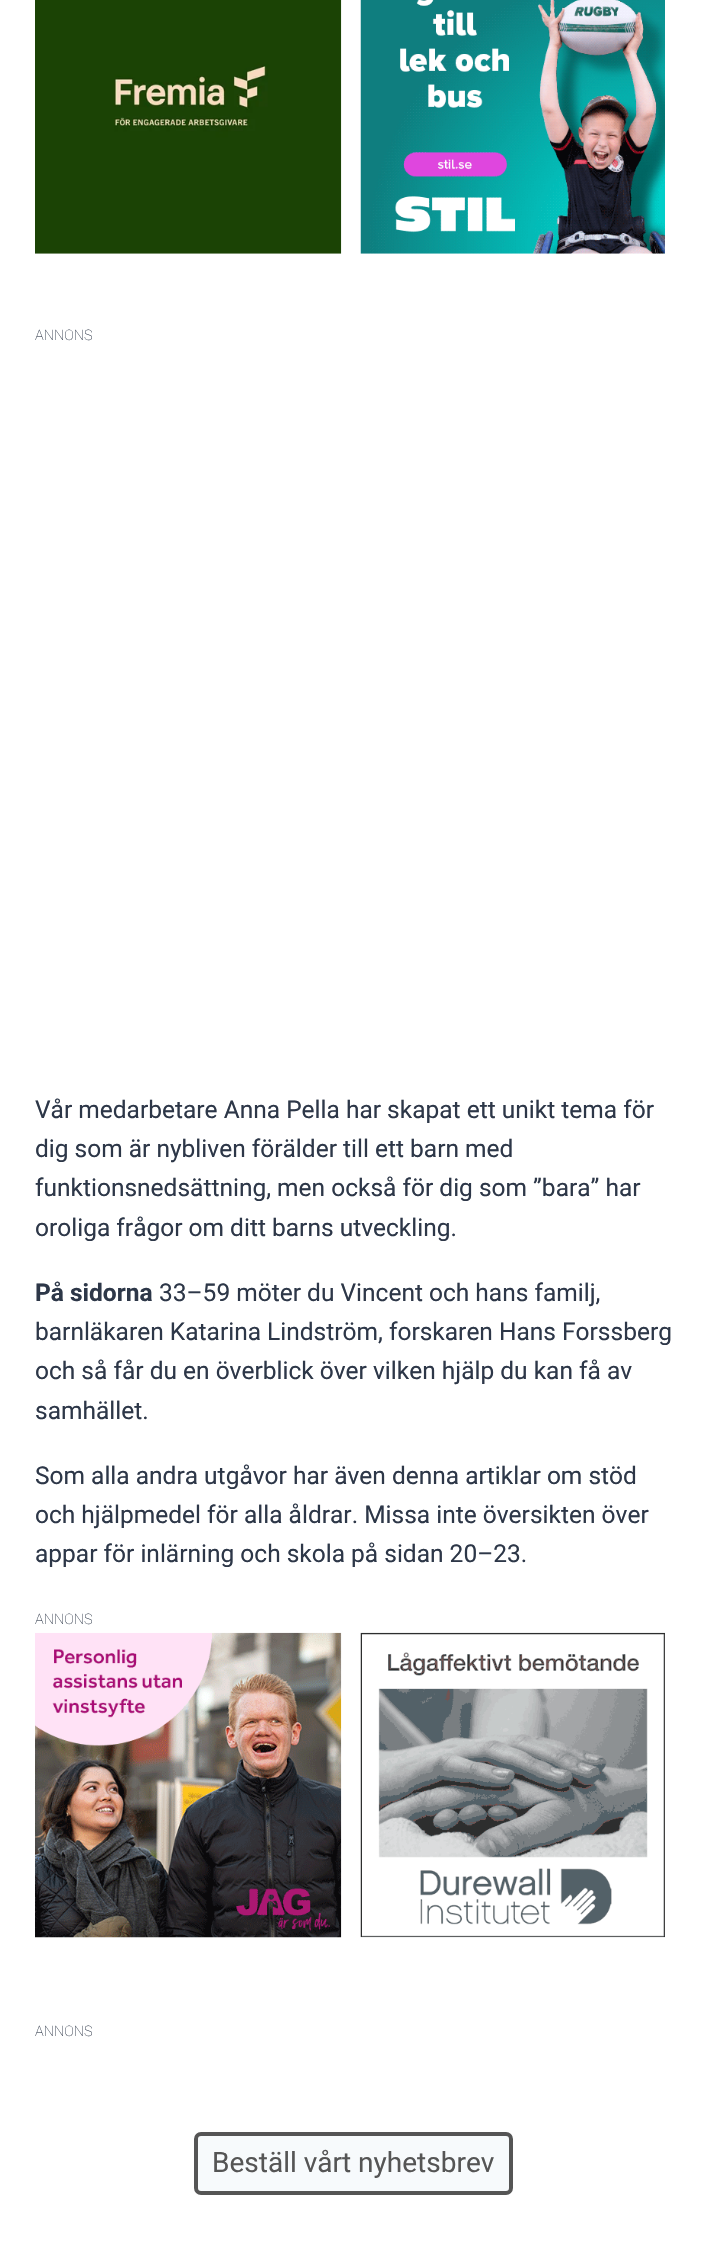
#include "include/core/SkBlurTypes.h"
#include "include/core/SkCanvas.h"
#include "include/core/SkData.h"
#include "include/core/SkFont.h"
#include "include/core/SkFontMgr.h"
#include "include/core/SkImage.h"
#include "include/core/SkMaskFilter.h"
#include "include/core/SkPaint.h"
#include "include/core/SkPathBuilder.h"
#include "include/core/SkTextBlob.h"
#include "include/effects/SkDashPathEffect.h"
#include "include/effects/SkGradientShader.h"
#include "include/utils/SkParsePath.h"

extern sk_sp<SkFontMgr> fontMgr;

void draw(SkCanvas* canvas) {
    SkPaint p;
    p.setAntiAlias(true);
    auto font = [&](const char* family, int weight, float size, bool italic = false) {
        SkFontStyle style(weight, SkFontStyle::kNormal_Width,
            italic ? SkFontStyle::kItalic_Slant : SkFontStyle::kUpright_Slant);
        SkFont result(fontMgr->matchFamilyStyle(family, style), size);
        result.setSubpixel(true);
        return result;
    };
    auto drawPhoto = [&](const char* path, float l, float t, float r, float b) {
        auto image = SkImages::DeferredFromEncodedData(SkData::MakeFromFileName(path));
        canvas->drawImageRect(image, SkRect::MakeLTRB(l, t, r, b), SkSamplingOptions());
    };
    canvas->clear(0xFFFFFFFF);
    drawPhoto("media/1.png", 35, 0, 342, 254);
    drawPhoto("media/2.png", 360, 0, 665, 254);
    auto font1 = font("Roboto", 100, 14.5f);
    p.setColor(0xFF2D3748);
    canvas->drawString("ANNONS", 35, 340, font1, p);
    auto font2 = font("Roboto", 400, 24.5f);
    {
        const struct { const char* s; float x, y; } items[] = {
            {"Vår medarbetare Anna Pella har skapat ett unikt tema för", 35, 1118},
            {"dig som är nybliven förälder till ett barn med", 35, 1157},
            {"funktionsnedsättning, men också för dig som ”bara” har", 35, 1196},
            {"oroliga frågor om ditt barns utveckling.", 35, 1236},
        };
        for (auto [s, x, y] : items) {
            canvas->drawString(s, x, y, font2, p);
        }
    }
    auto font3 = font("Roboto", 700, 24.5f);
    canvas->drawString("På sidorna", 35, 1301, font3, p);
    {
        const struct { const char* s; float x, y; } items[] = {
            {"33–59 möter du Vincent och hans familj,", 159, 1301},
            {"barnläkaren Katarina Lindström, forskaren Hans Forssberg", 35, 1340},
            {"och så får du en överblick över vilken hjälp du kan få av", 35, 1379},
            {"samhället.", 35, 1419},
            {"Som alla andra utgåvor har även denna artiklar om stöd", 35, 1484},
            {"och hjälpmedel för alla åldrar. Missa inte översikten över", 35, 1523},
            {"appar för inlärning och skola på sidan 20–23.", 35, 1562},
        };
        for (auto [s, x, y] : items) {
            canvas->drawString(s, x, y, font2, p);
        }
    }
    canvas->drawString("ANNONS", 35, 1624, font1, p);
    drawPhoto("media/3.png", 35, 1632, 342, 1938);
    drawPhoto("media/4.png", 360, 1632, 665, 1938);
    canvas->drawString("ANNONS", 35, 2036, font1, p);
    p.setColor(0xFFF7FAFC);
    canvas->drawRoundRect(SkRect::MakeLTRB(196, 2134, 511, 2193), 5, 5, p);
    p.setStyle(SkPaint::kStroke_Style);
    p.setStrokeWidth(4);
    p.setColor(0xFF555555);
    canvas->drawRoundRect(SkRect::MakeLTRB(196, 2134, 511, 2193), 5, 5, p);
    auto font4 = font("Roboto", 400, 28);
    p.setStyle(SkPaint::kFill_Style);
    canvas->drawString("Beställ vårt nyhetsbrev", 212, 2172, font4, p);
}
